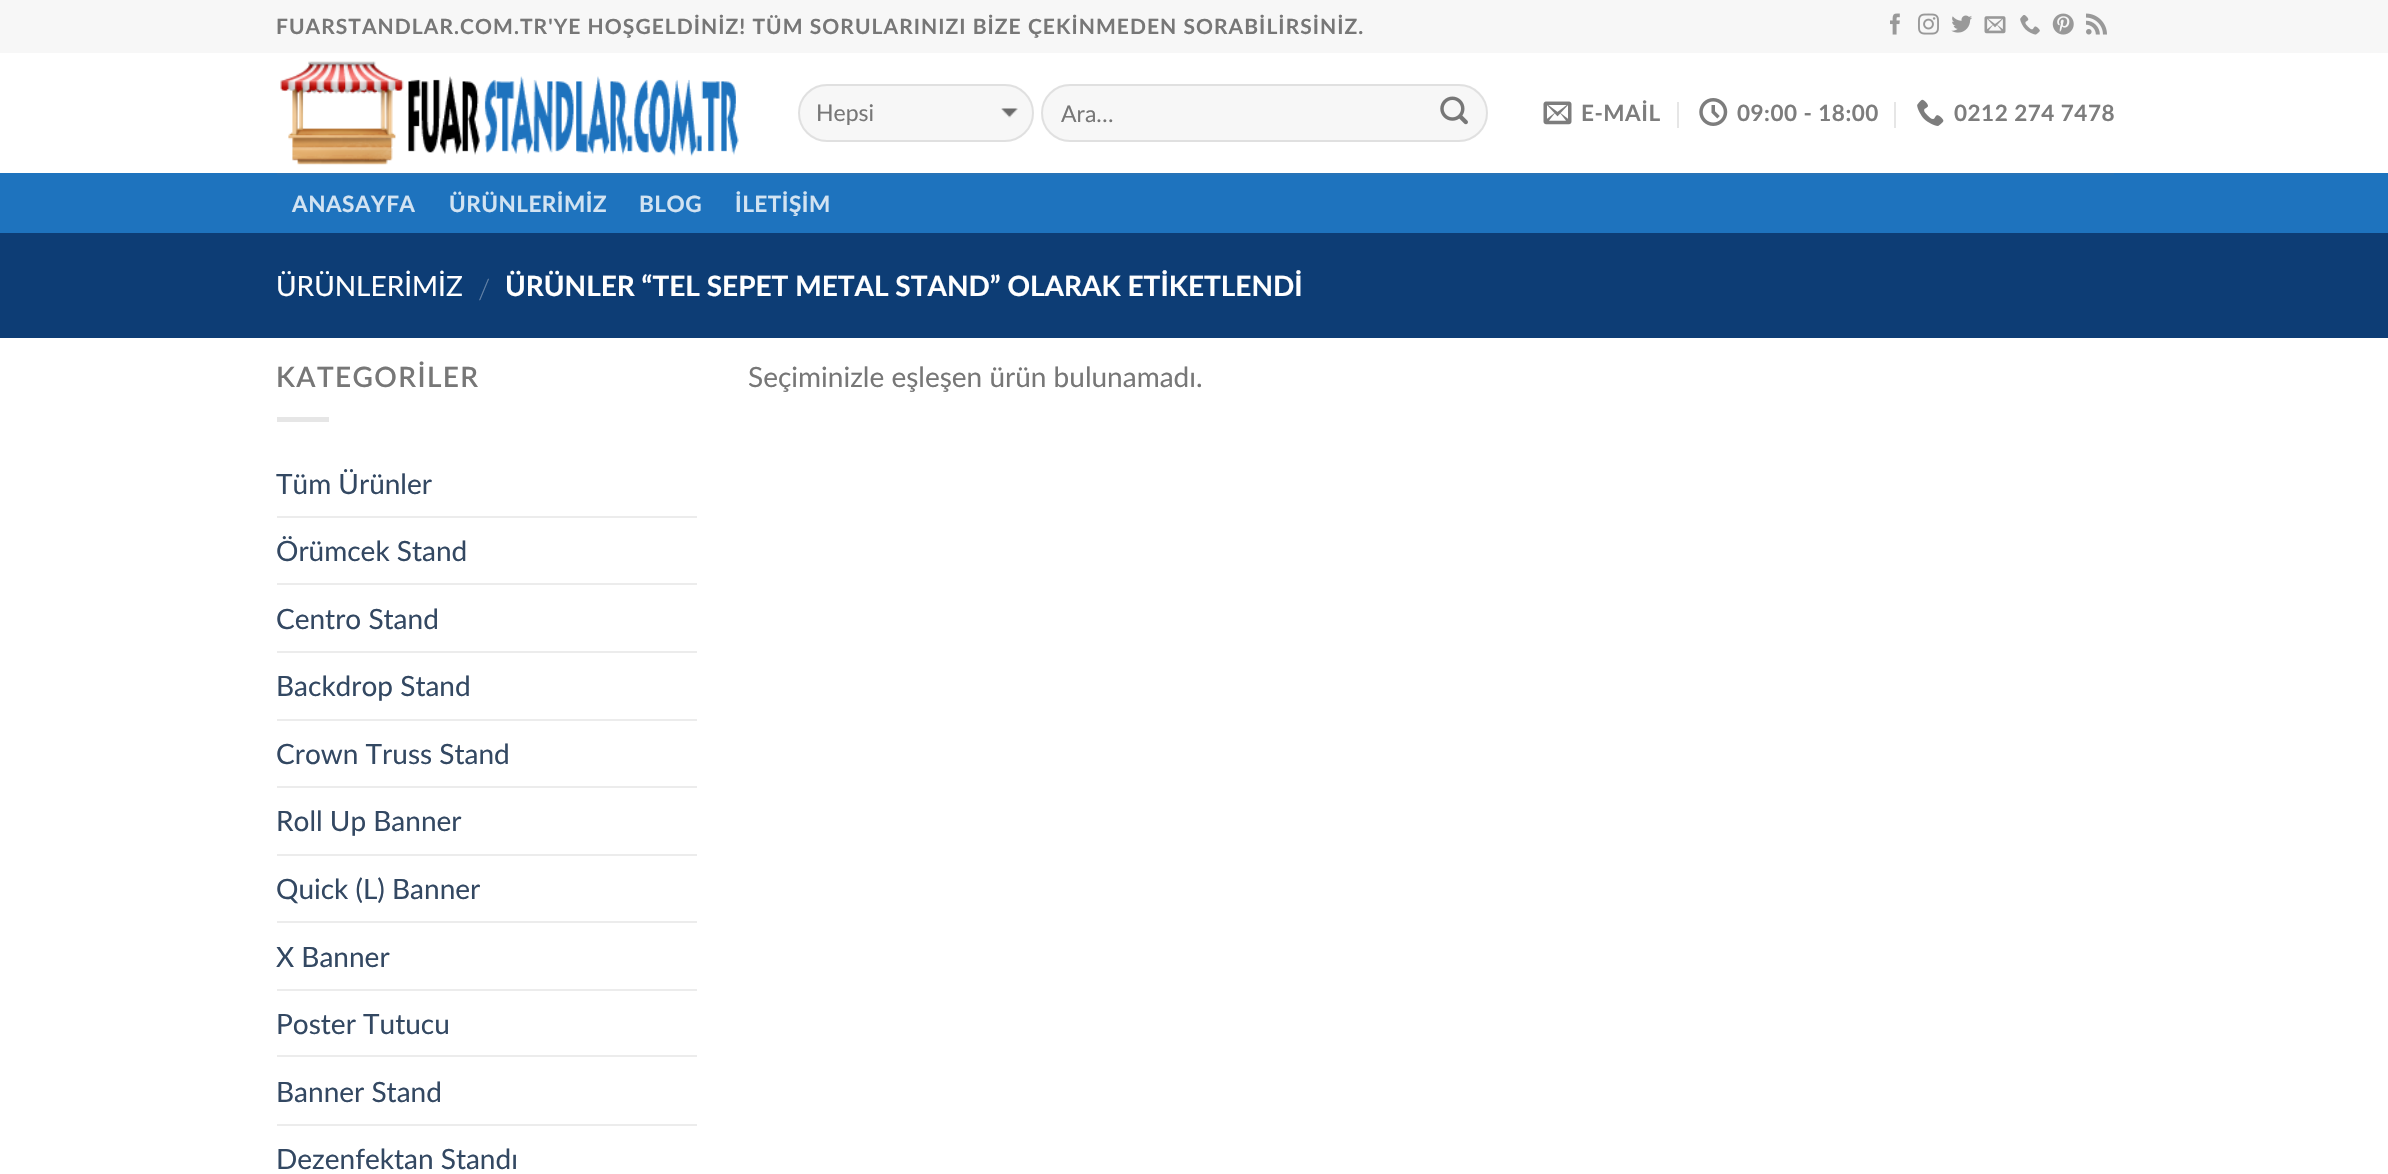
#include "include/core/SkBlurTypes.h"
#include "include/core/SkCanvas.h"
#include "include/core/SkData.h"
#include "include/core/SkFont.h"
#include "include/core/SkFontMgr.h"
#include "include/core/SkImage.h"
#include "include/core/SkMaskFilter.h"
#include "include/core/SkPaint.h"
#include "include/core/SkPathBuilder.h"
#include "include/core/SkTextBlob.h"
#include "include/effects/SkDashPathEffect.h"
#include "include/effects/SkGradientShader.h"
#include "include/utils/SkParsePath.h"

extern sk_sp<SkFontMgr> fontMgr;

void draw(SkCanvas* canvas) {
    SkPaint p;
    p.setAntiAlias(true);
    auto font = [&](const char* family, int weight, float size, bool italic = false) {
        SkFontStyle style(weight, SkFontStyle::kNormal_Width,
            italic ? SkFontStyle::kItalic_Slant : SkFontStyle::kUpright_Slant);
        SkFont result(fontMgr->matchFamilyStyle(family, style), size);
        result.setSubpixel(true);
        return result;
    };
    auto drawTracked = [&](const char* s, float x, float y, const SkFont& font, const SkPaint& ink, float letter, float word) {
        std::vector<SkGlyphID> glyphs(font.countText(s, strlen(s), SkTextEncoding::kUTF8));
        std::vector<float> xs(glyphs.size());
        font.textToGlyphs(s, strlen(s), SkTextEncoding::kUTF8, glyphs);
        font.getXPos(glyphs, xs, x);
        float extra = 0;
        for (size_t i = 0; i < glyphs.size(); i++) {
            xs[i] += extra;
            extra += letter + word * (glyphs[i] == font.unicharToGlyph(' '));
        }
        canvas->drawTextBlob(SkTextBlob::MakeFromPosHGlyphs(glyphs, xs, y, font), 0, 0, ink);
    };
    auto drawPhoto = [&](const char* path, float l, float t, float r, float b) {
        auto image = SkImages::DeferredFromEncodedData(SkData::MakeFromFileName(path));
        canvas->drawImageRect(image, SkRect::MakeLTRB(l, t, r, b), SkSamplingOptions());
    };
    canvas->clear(0xFFFFFFFF);
    p.setColor(0xFFF7F7F7);
    canvas->drawRect(SkRect::MakeLTRB(0, 0, 2388, 53), p);
    auto font1 = font("Lato", 700, 21);
    p.setColor(0xFF777777);
    drawTracked("FUARSTANDLAR.COM.TR'YE HOŞGELDİNİZ! TÜM SORULARINIZI BİZE ÇEKİNMEDEN SORABİLİRSİNİZ.", 276, 34, font1, p, 1.05f, 0);
    drawPhoto("media/1.png", 1890, 13, 1900, 35);
    drawPhoto("media/2.png", 1918, 13, 1939, 35);
    drawPhoto("media/3.png", 1951, 15, 1972, 33);
    drawPhoto("media/4.png", 1984, 16, 2006, 34);
    drawPhoto("media/5.png", 2020, 15, 2040, 35);
    drawPhoto("media/6.png", 2052, 13, 2074, 35);
    drawPhoto("media/7.png", 2086, 13, 2107, 35);
    drawPhoto("media/8.png", 280, 61, 739, 165);
    p.setColor(0xFFF7F7F7);
    canvas->drawRoundRect(SkRect::MakeLTRB(798, 84, 1034, 142), 29, 29, p);
    drawPhoto("media/9.png", 1001, 108, 1018, 118);
    p.setStyle(SkPaint::kStroke_Style);
    p.setStrokeWidth(2);
    p.setColor(0x17000000);
    canvas->drawRoundRect(SkRect::MakeLTRB(799, 85, 1033, 141), 28, 28, p);
    auto font2 = font("Lato", 400, 23);
    p.setStyle(SkPaint::kFill_Style);
    p.setColor(0xFF777777);
    canvas->drawString("Hepsi", 816, 121, font2, p);
    p.setColor(0xFFF7F7F7);
    canvas->drawRoundRect(SkRect::MakeLTRB(1041, 84, 1488, 142), 29, 29, p);
    p.setStyle(SkPaint::kStroke_Style);
    p.setColor(0x17000000);
    canvas->drawRoundRect(SkRect::MakeLTRB(1042, 85, 1487, 141), 28, 28, p);
    p.setStyle(SkPaint::kFill_Style);
    p.setColor(0xFF777777);
    canvas->drawString("Ara…", 1061, 122, font2, p);
    drawPhoto("media/10.png", 1440, 96, 1468, 125);
    drawPhoto("media/11.png", 1543, 101, 1572, 125);
    auto font3 = font("Lato", 700, 22.5f);
    p.setColor(0xFF7D7D7D);
    drawTracked("E-MAİL", 1581, 121, font3, p, 0.5f, 0);
    p.setColor(0xFFE6E6E6);
    canvas->drawRect(SkRect::MakeLTRB(1677, 102, 1679, 128), p);
    drawPhoto("media/12.png", 1699, 98, 1728, 126);
    p.setColor(0xFF7D7D7D);
    drawTracked("09:00 - 18:00", 1737, 121, font3, p, 0.5f, 0);
    p.setColor(0xFFE6E6E6);
    canvas->drawRect(SkRect::MakeLTRB(1894, 102, 1896, 128), p);
    drawPhoto("media/13.png", 1917, 99, 1944, 126);
    p.setColor(0xFF7D7D7D);
    drawTracked("0212 274 7478", 1954, 121, font3, p, 0.5f, 0);
    p.setColor(0xFF1E73BE);
    canvas->drawRect(SkRect::MakeLTRB(0, 173, 2388, 233), p);
    p.setColor(0xFF2773B7);
    canvas->drawRect(SkRect::MakeLTRB(277, 173, 2114, 175), p);
    p.setColor(0xFFD2E3F2);
    {
        const struct { const char* s; float x, y; } items[] = {
            {"ANASAYFA", 292, 212},
            {"ÜRÜNLERİMİZ", 449, 212},
            {"BLOG", 639, 212},
            {"İLETİŞİM", 735, 212},
        };
        for (auto [s, x, y] : items) {
            drawTracked(s, x, y, font3, p, 0.5f, 0);
        }
    }
    p.setColor(0xFF0D3D75);
    canvas->drawRect(SkRect::MakeLTRB(0, 233, 2388, 338), p);
    auto font4 = font("Lato", 400, 28);
    p.setColor(0xFFFFFFFF);
    canvas->drawString("ÜRÜNLERİMİZ", 276, 296, font4, p);
    auto font5 = font("Lato", 300, 28);
    p.setColor(0xFF6281A5);
    canvas->drawString("/", 478, 299, font5, p);
    auto font6 = font("Lato", 700, 28);
    p.setColor(0xFFFFFFFF);
    canvas->drawString("ÜRÜNLER “TEL SEPET METAL STAND” OLARAK ETİKETLENDİ", 505, 296, font6, p);
    auto font7 = font("Lato", 600, 28);
    p.setColor(0xFF777777);
    drawTracked("KATEGORİLER", 276, 387, font7, p, 1.4f, 0);
    p.setColor(0xFFE6E6E6);
    canvas->drawRect(SkRect::MakeLTRB(277, 417, 329, 422), p);
    p.setColor(0xFF334862);
    canvas->drawString("Tüm Ürünler", 276, 494, font4, p);
    p.setColor(0xFFECECEC);
    canvas->drawRect(SkRect::MakeLTRB(277, 516, 697, 518), p);
    p.setColor(0xFF334862);
    canvas->drawString("Örümcek Stand", 276, 561, font4, p);
    p.setColor(0xFFECECEC);
    canvas->drawRect(SkRect::MakeLTRB(277, 583, 697, 585), p);
    p.setColor(0xFF334862);
    canvas->drawString("Centro Stand", 276, 629, font4, p);
    p.setColor(0xFFECECEC);
    canvas->drawRect(SkRect::MakeLTRB(277, 651, 697, 653), p);
    p.setColor(0xFF334862);
    canvas->drawString("Backdrop Stand", 276, 696, font4, p);
    p.setColor(0xFFECECEC);
    canvas->drawRect(SkRect::MakeLTRB(277, 719, 697, 721), p);
    p.setColor(0xFF334862);
    canvas->drawString("Crown Truss Stand", 276, 764, font4, p);
    p.setColor(0xFFECECEC);
    canvas->drawRect(SkRect::MakeLTRB(277, 786, 697, 788), p);
    p.setColor(0xFF334862);
    canvas->drawString("Roll Up Banner", 276, 831, font4, p);
    p.setColor(0xFFECECEC);
    canvas->drawRect(SkRect::MakeLTRB(277, 854, 697, 856), p);
    p.setColor(0xFF334862);
    canvas->drawString("Quick (L) Banner", 276, 899, font4, p);
    p.setColor(0xFFECECEC);
    canvas->drawRect(SkRect::MakeLTRB(277, 921, 697, 923), p);
    p.setColor(0xFF334862);
    canvas->drawString("X Banner", 276, 967, font4, p);
    p.setColor(0xFFECECEC);
    canvas->drawRect(SkRect::MakeLTRB(277, 989, 697, 991), p);
    p.setColor(0xFF334862);
    canvas->drawString("Poster Tutucu", 276, 1034, font4, p);
    p.setColor(0xFFECECEC);
    canvas->drawRect(SkRect::MakeLTRB(277, 1055, 697, 1057), p);
    p.setColor(0xFF334862);
    canvas->drawString("Banner Stand", 276, 1102, font4, p);
    p.setColor(0xFFECECEC);
    canvas->drawRect(SkRect::MakeLTRB(277, 1124, 697, 1126), p);
    p.setColor(0xFF334862);
    canvas->drawString("Dezenfektan Standı", 276, 1169, font4, p);
    p.setColor(0xFF777777);
    canvas->drawString("Seçiminizle eşleşen ürün bulunamadı.", 748, 387, font4, p);
}
